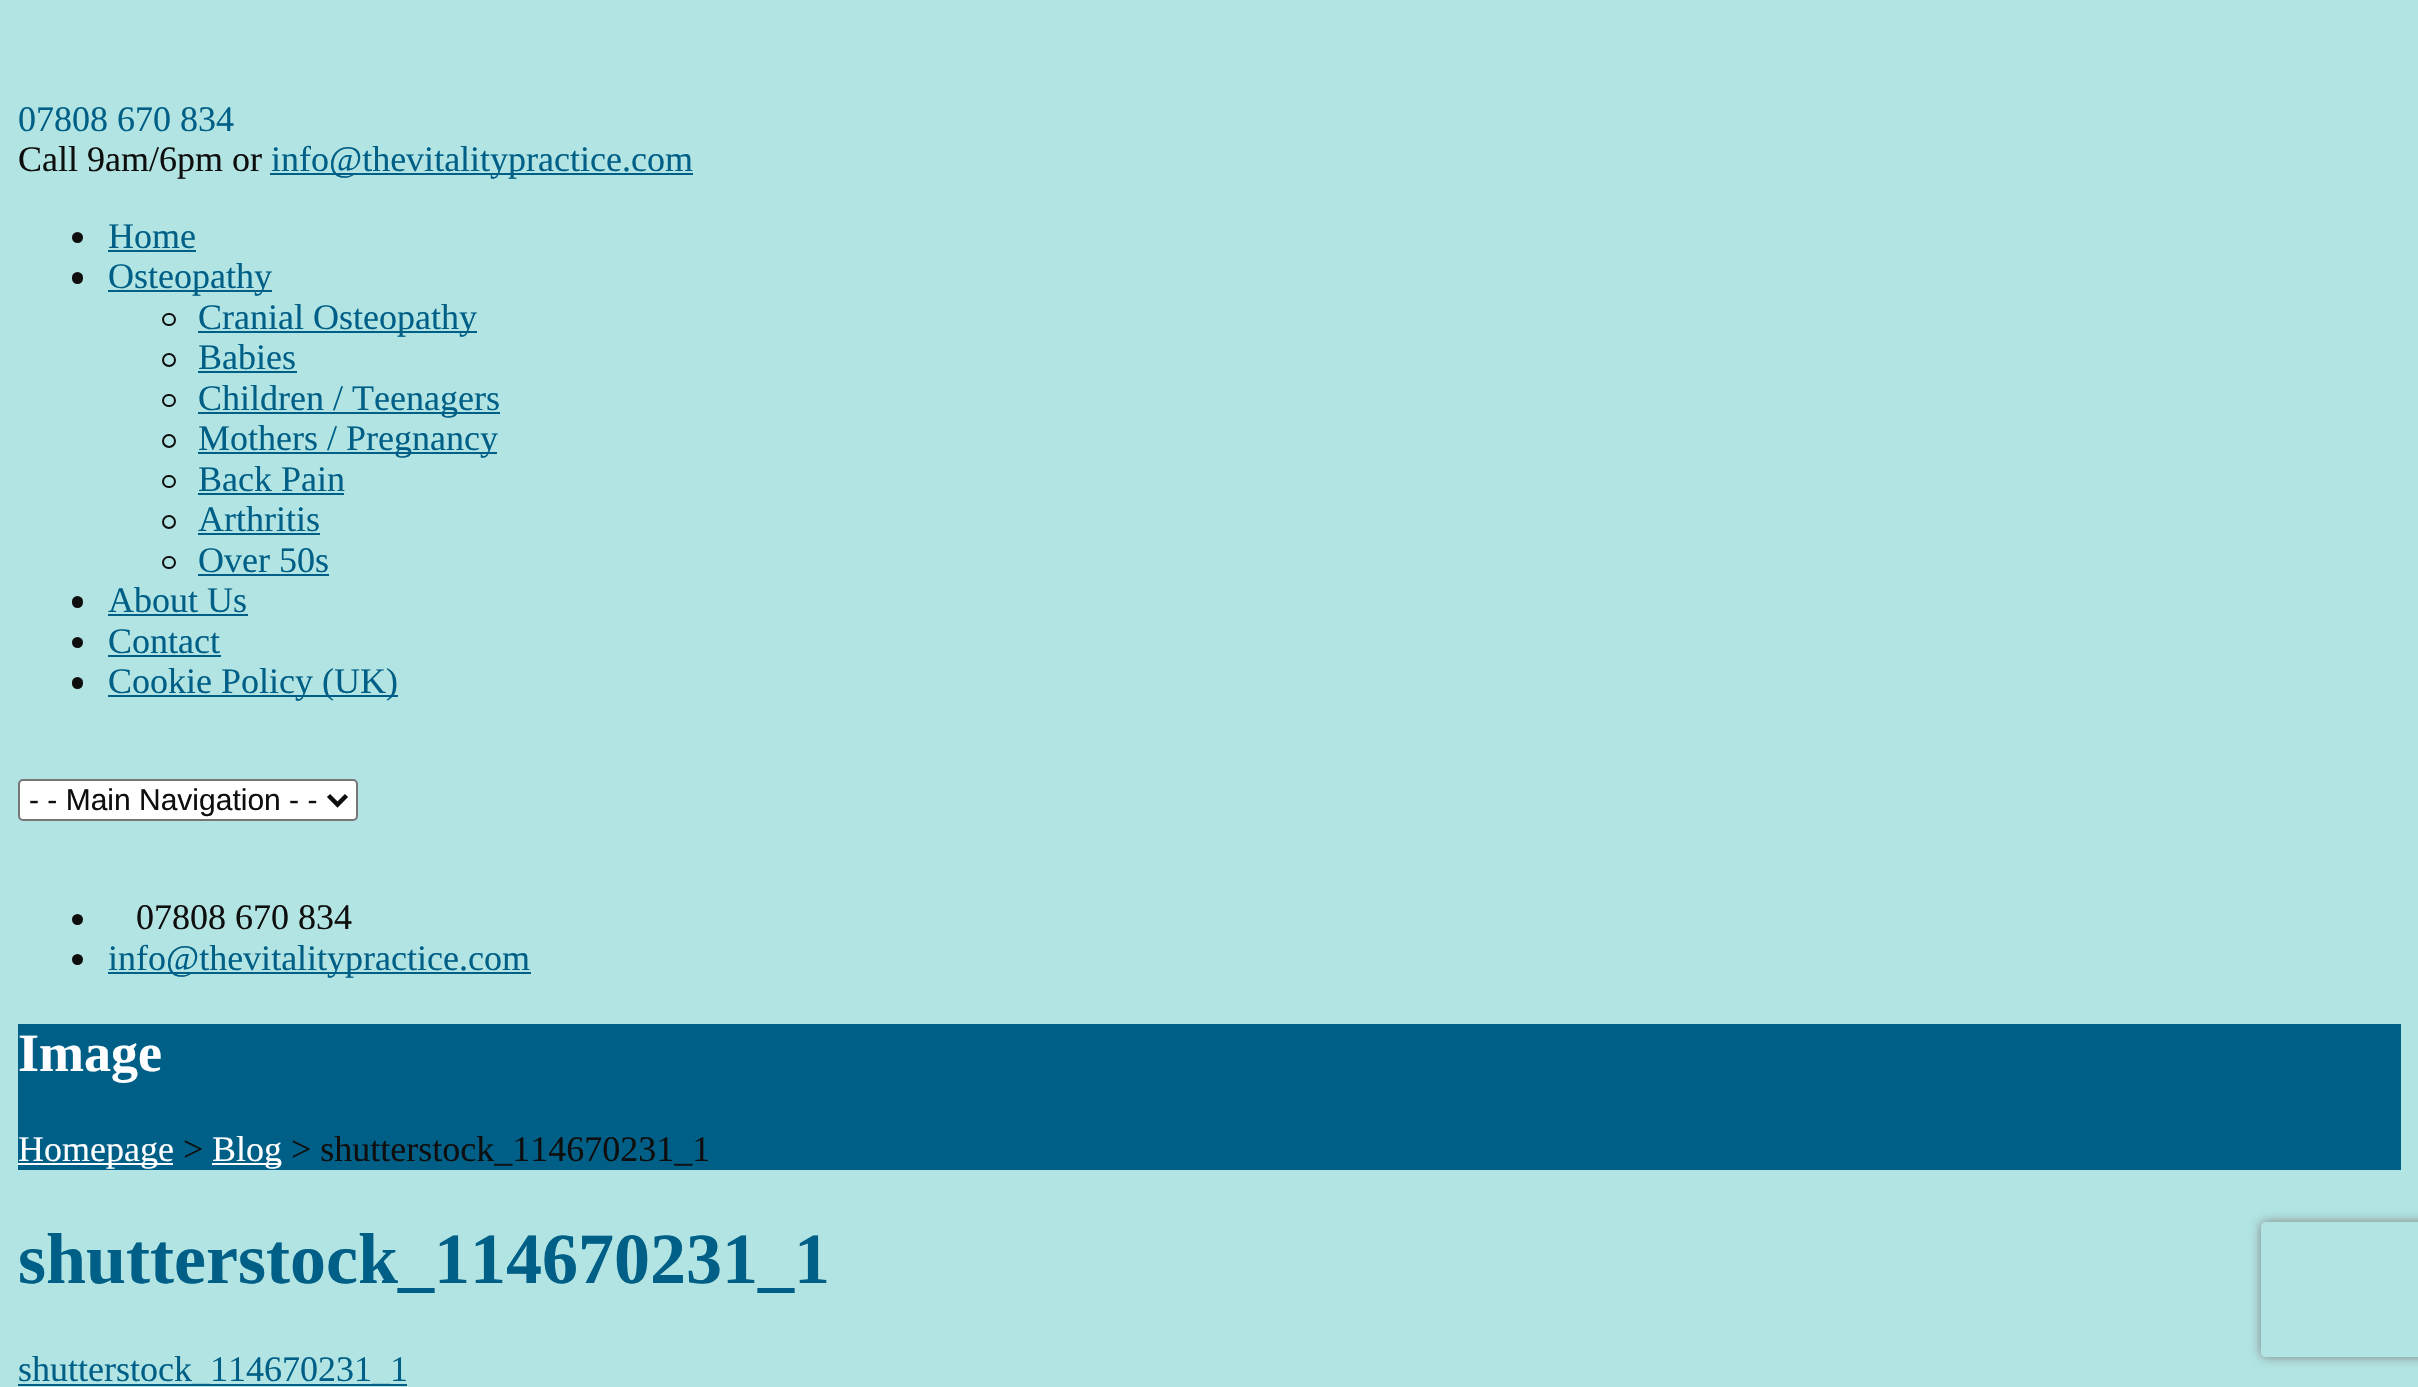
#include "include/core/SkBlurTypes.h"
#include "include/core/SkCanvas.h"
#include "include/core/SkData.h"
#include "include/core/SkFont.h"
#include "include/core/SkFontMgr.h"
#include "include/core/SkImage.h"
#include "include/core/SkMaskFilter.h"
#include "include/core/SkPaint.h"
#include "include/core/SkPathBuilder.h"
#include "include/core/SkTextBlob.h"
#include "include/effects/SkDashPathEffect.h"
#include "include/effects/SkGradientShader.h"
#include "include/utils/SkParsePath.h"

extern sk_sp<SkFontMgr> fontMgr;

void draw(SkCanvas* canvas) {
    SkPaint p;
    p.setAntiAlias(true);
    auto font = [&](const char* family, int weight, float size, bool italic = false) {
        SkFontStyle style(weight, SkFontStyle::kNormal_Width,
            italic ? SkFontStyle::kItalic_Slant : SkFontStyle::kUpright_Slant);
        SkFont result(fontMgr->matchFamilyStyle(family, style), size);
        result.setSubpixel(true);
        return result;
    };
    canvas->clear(0xFFB1E4E3);
    auto font1 = font("Liberation Serif", 400, 36);
    p.setColor(0xFF005F86);
    canvas->drawString("07808 670 834", 18, 131, font1, p);
    p.setColor(0xFF0F0E0E);
    canvas->drawString("Call 9am/6pm or", 18, 171, font1, p);
    p.setColor(0xFF005F86);
    canvas->drawRect(SkRect::MakeLTRB(270, 173, 693, 175), p);
    canvas->drawString("info@thevitalitypractice.com", 271, 171, font1, p);
    p.setColor(0xFF0F0E0E);
    canvas->drawCircle(77.5f, 237.5f, 5.5f, p);
    p.setColor(0xFF005F86);
    canvas->drawString("Home", 108, 248, font1, p);
    canvas->drawRect(SkRect::MakeLTRB(108, 250, 196, 252), p);
    p.setColor(0xFF0F0E0E);
    canvas->drawRoundRect(SkRect::MakeLTRB(72, 272, 83, 284), 5.5f, 5.5f, p);
    p.setColor(0xFF005F86);
    canvas->drawRect(SkRect::MakeLTRB(108, 290, 272, 292), p);
    canvas->drawString("Osteopathy", 108, 288, font1, p);
    p.setStyle(SkPaint::kStroke_Style);
    p.setStrokeWidth(2);
    p.setColor(0xFF0F0E0E);
    canvas->drawRoundRect(SkRect::MakeLTRB(163, 314, 175, 325), 5.5f, 5.5f, p);
    p.setStyle(SkPaint::kFill_Style);
    p.setColor(0xFF005F86);
    canvas->drawRect(SkRect::MakeLTRB(198, 331, 477, 333), p);
    canvas->drawString("Cranial Osteopathy", 198, 329, font1, p);
    p.setStyle(SkPaint::kStroke_Style);
    p.setColor(0xFF0F0E0E);
    canvas->drawCircle(169, 360, 6, p);
    p.setStyle(SkPaint::kFill_Style);
    p.setColor(0xFF005F86);
    canvas->drawString("Babies", 198, 369, font1, p);
    canvas->drawRect(SkRect::MakeLTRB(198, 371, 297, 373), p);
    p.setStyle(SkPaint::kStroke_Style);
    p.setColor(0xFF0F0E0E);
    canvas->drawRoundRect(SkRect::MakeLTRB(163, 395, 175, 406), 5.5f, 5.5f, p);
    p.setStyle(SkPaint::kFill_Style);
    p.setColor(0xFF005F86);
    canvas->drawRect(SkRect::MakeLTRB(198, 412, 500, 414), p);
    canvas->drawString("Children / Teenagers", 198, 410, font1, p);
    p.setStyle(SkPaint::kStroke_Style);
    p.setColor(0xFF0F0E0E);
    canvas->drawCircle(169, 441, 6, p);
    p.setStyle(SkPaint::kFill_Style);
    p.setColor(0xFF005F86);
    canvas->drawRect(SkRect::MakeLTRB(198, 452, 497, 454), p);
    canvas->drawString("Mothers / Pregnancy", 198, 450, font1, p);
    p.setStyle(SkPaint::kStroke_Style);
    p.setColor(0xFF0F0E0E);
    canvas->drawRoundRect(SkRect::MakeLTRB(163, 476, 175, 487), 5.5f, 5.5f, p);
    p.setStyle(SkPaint::kFill_Style);
    p.setColor(0xFF005F86);
    canvas->drawString("Back Pain", 198, 491, font1, p);
    canvas->drawRect(SkRect::MakeLTRB(198, 493, 344, 495), p);
    p.setStyle(SkPaint::kStroke_Style);
    p.setColor(0xFF0F0E0E);
    canvas->drawCircle(169, 522, 6, p);
    p.setStyle(SkPaint::kFill_Style);
    p.setColor(0xFF005F86);
    canvas->drawString("Arthritis", 198, 531, font1, p);
    canvas->drawRect(SkRect::MakeLTRB(198, 533, 320, 535), p);
    p.setStyle(SkPaint::kStroke_Style);
    p.setColor(0xFF0F0E0E);
    canvas->drawRoundRect(SkRect::MakeLTRB(163, 557, 175, 568), 5.5f, 5.5f, p);
    p.setStyle(SkPaint::kFill_Style);
    p.setColor(0xFF005F86);
    canvas->drawString("Over 50s", 198, 572, font1, p);
    canvas->drawRect(SkRect::MakeLTRB(198, 574, 329, 576), p);
    p.setColor(0xFF0F0E0E);
    canvas->drawRoundRect(SkRect::MakeLTRB(72, 596, 83, 608), 5.5f, 5.5f, p);
    p.setColor(0xFF005F86);
    canvas->drawString("About Us", 108, 612, font1, p);
    canvas->drawRect(SkRect::MakeLTRB(108, 614, 248, 616), p);
    p.setColor(0xFF0F0E0E);
    canvas->drawCircle(77.5f, 642.5f, 5.5f, p);
    p.setColor(0xFF005F86);
    canvas->drawString("Contact", 108, 653, font1, p);
    canvas->drawRect(SkRect::MakeLTRB(108, 655, 221, 657), p);
    p.setColor(0xFF0F0E0E);
    canvas->drawRoundRect(SkRect::MakeLTRB(72, 677, 83, 689), 5.5f, 5.5f, p);
    p.setColor(0xFF005F86);
    canvas->drawRect(SkRect::MakeLTRB(108, 695, 398, 697), p);
    canvas->drawString("Cookie Policy (UK)", 108, 693, font1, p);
    p.setColor(0xFFFFFFFF);
    canvas->drawRoundRect(SkRect::MakeLTRB(19, 780, 357, 820), 4, 4, p);
    p.setStyle(SkPaint::kStroke_Style);
    p.setColor(0xFF767676);
    canvas->drawRoundRect(SkRect::MakeLTRB(19, 780, 357, 820), 4, 4, p);
    p.setStrokeWidth(4.5f);
    p.setColor(0xFF0F0E0E);
    canvas->drawPath(SkPathBuilder().moveTo(328.5f, 795.5f).lineTo(337.5f, 804.5f).lineTo(346.5f, 795.5f).detach(), p);
    auto font2 = font("Liberation Sans", 400, 30);
    p.setStyle(SkPaint::kFill_Style);
    canvas->drawString("- - Main Navigation - -", 29, 810, font2, p);
    canvas->drawCircle(77.5f, 919.5f, 5.5f, p);
    canvas->drawString("07808 670 834", 136, 929, font1, p);
    canvas->drawCircle(77.5f, 959.5f, 5.5f, p);
    p.setColor(0xFF005F86);
    canvas->drawRect(SkRect::MakeLTRB(108, 972, 531, 974), p);
    canvas->drawString("info@thevitalitypractice.com", 108, 970, font1, p);
    canvas->drawRect(SkRect::MakeLTRB(18, 1024, 2401, 1170), p);
    auto font3 = font("Liberation Serif", 700, 54);
    p.setColor(0xFFFFFFFF);
    canvas->drawString("Image", 18, 1071, font3, p);
    canvas->drawRect(SkRect::MakeLTRB(18, 1163, 173, 1165), p);
    canvas->drawString("Homepage", 18, 1161, font1, p);
    p.setColor(0xFF0F0E0E);
    canvas->drawString(">", 183, 1161, font1, p);
    p.setColor(0xFFFFFFFF);
    canvas->drawRect(SkRect::MakeLTRB(212, 1163, 281, 1165), p);
    canvas->drawString("Blog", 212, 1161, font1, p);
    p.setColor(0xFF0F0E0E);
    canvas->drawString("> shutterstock_114670231_1", 291, 1161, font1, p);
    auto font4 = font("Liberation Serif", 700, 72);
    p.setColor(0xFF005F86);
    canvas->drawString("shutterstock_114670231_1", 18, 1283, font4, p);
    canvas->drawRect(SkRect::MakeLTRB(18, 1384, 407, 1386), p);
    canvas->drawString("shutterstock_114670231_1", 18, 1381, font1, p);
    canvas->save();
    canvas->clipPath(SkPathBuilder(SkPathFillType::kEvenOdd).moveTo(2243, 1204).lineTo(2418, 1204).lineTo(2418, 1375).lineTo(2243, 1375).close().moveTo(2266, 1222).lineTo(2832, 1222).cubicTo(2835, 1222, 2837, 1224, 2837, 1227).lineTo(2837, 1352).cubicTo(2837, 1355, 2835, 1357, 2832, 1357).lineTo(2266, 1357).cubicTo(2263, 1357, 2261, 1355, 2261, 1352).lineTo(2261, 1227).cubicTo(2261, 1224, 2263, 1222, 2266, 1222).close().detach(), true);
    p.setColor(0xFF808080);
    p.setMaskFilter(SkMaskFilter::MakeBlur(kNormal_SkBlurStyle, 5.5f));
    canvas->drawRoundRect(SkRect::MakeLTRB(2261, 1222, 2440, 1357), 5, 5, p);
    p.setMaskFilter(nullptr);
    canvas->restore();
}
